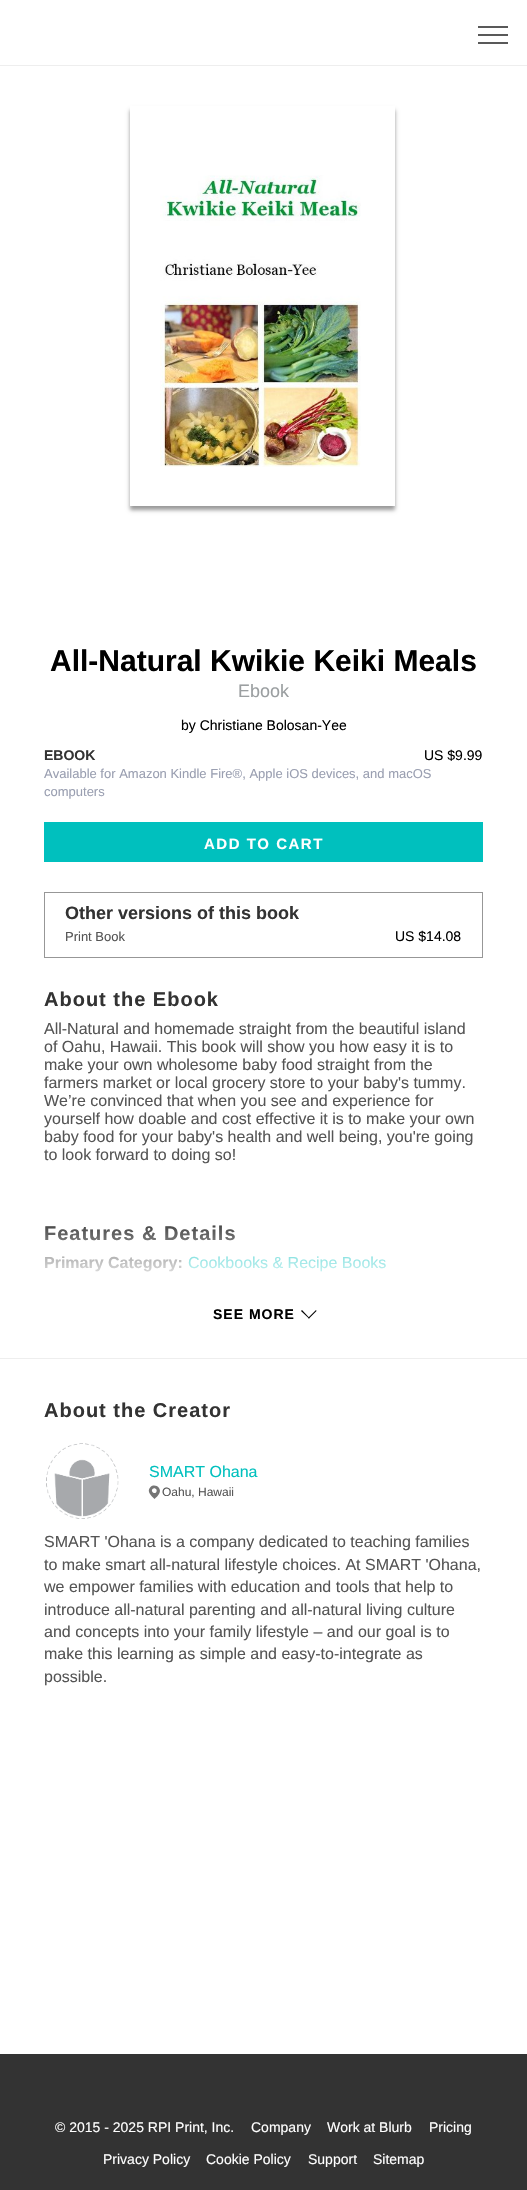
#include "include/core/SkBlurTypes.h"
#include "include/core/SkCanvas.h"
#include "include/core/SkData.h"
#include "include/core/SkFont.h"
#include "include/core/SkFontMgr.h"
#include "include/core/SkImage.h"
#include "include/core/SkMaskFilter.h"
#include "include/core/SkPaint.h"
#include "include/core/SkPathBuilder.h"
#include "include/core/SkTextBlob.h"
#include "include/effects/SkDashPathEffect.h"
#include "include/effects/SkGradientShader.h"
#include "include/utils/SkParsePath.h"

extern sk_sp<SkFontMgr> fontMgr;

void draw(SkCanvas* canvas) {
    SkPaint p;
    p.setAntiAlias(true);
    auto font = [&](const char* family, int weight, float size, bool italic = false) {
        SkFontStyle style(weight, SkFontStyle::kNormal_Width,
            italic ? SkFontStyle::kItalic_Slant : SkFontStyle::kUpright_Slant);
        SkFont result(fontMgr->matchFamilyStyle(family, style), size);
        result.setSubpixel(true);
        return result;
    };
    auto drawTracked = [&](const char* s, float x, float y, const SkFont& font, const SkPaint& ink, float letter, float word) {
        std::vector<SkGlyphID> glyphs(font.countText(s, strlen(s), SkTextEncoding::kUTF8));
        std::vector<float> xs(glyphs.size());
        font.textToGlyphs(s, strlen(s), SkTextEncoding::kUTF8, glyphs);
        font.getXPos(glyphs, xs, x);
        float extra = 0;
        for (size_t i = 0; i < glyphs.size(); i++) {
            xs[i] += extra;
            extra += letter + word * (glyphs[i] == font.unicharToGlyph(' '));
        }
        canvas->drawTextBlob(SkTextBlob::MakeFromPosHGlyphs(glyphs, xs, y, font), 0, 0, ink);
    };
    auto drawPhoto = [&](const char* path, float l, float t, float r, float b) {
        auto image = SkImages::DeferredFromEncodedData(SkData::MakeFromFileName(path));
        canvas->drawImageRect(image, SkRect::MakeLTRB(l, t, r, b), SkSamplingOptions());
    };
    canvas->clear(0xFFFFFFFF);
    {
        const struct { float l, t, r, b; SkColor color; } items[] = {
            {478, 42, 508, 44, 0xFF595959},
            {478, 34, 508, 36, 0xFF595959},
            {478, 26, 508, 28, 0xFF595959},
            {0, 65, 527, 66, 0xFFEEEEEE},
        };
        for (auto [l, t, r, b, color] : items) {
            p.setColor(color);
            canvas->drawRect(SkRect::MakeLTRB(l, t, r, b), p);
        }
    }
    canvas->save();
    canvas->clipPath(SkPathBuilder(SkPathFillType::kEvenOdd).moveTo(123, 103).lineTo(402, 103).lineTo(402, 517).lineTo(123, 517).close().moveTo(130, 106).lineTo(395, 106).lineTo(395, 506).lineTo(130, 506).close().detach(), true);
    p.setColor(0xFF999999);
    p.setMaskFilter(SkMaskFilter::MakeBlur(kNormal_SkBlurStyle, 2));
    canvas->drawRect(SkRect::MakeLTRB(130, 110, 395, 510), p);
    p.setMaskFilter(nullptr);
    canvas->restore();
    drawPhoto("media/1.png", 160, 175, 361, 467);
    auto font1 = font("Liberation Sans", 700, 30);
    p.setColor(0xFF000000);
    canvas->drawString("All-Natural Kwikie Keiki Meals", 50, 671, font1, p);
    auto font2 = font("Liberation Sans", 400, 18);
    p.setColor(0xFF9B9FA1);
    canvas->drawString("Ebook", 238, 697, font2, p);
    auto font3 = font("Liberation Sans", 400, 14);
    p.setColor(0xFF000000);
    canvas->drawString("by Christiane Bolosan-Yee", 181, 730, font3, p);
    auto font4 = font("Liberation Sans", 700, 14);
    p.setColor(0xFF333333);
    canvas->drawString("EBOOK", 44, 760, font4, p);
    p.setColor(0xFF000000);
    canvas->drawString("US $9.99", 424, 760, font3, p);
    auto font5 = font("Liberation Sans", 400, 13);
    p.setColor(0xFF9A9FB1);
    canvas->drawString("Available for Amazon Kindle Fire®, Apple iOS devices, and macOS", 44, 778, font5, p);
    canvas->drawString("computers", 44, 796, font5, p);
    p.setColor(0xFF00C0BE);
    canvas->drawRect(SkRect::MakeLTRB(44, 822, 483, 862), p);
    auto font6 = font("Liberation Sans", 700, 15);
    p.setColor(0xFFFFFFFF);
    drawTracked("ADD TO CART", 204, 849, font6, p, 1.5f, 0);
    p.setStyle(SkPaint::kStroke_Style);
    p.setStrokeWidth(1);
    p.setColor(0xFF979797);
    canvas->drawRect(SkRect::MakeLTRB(44.5f, 892.5f, 482.5f, 957.5f), p);
    auto font7 = font("Liberation Sans", 700, 18);
    p.setStyle(SkPaint::kFill_Style);
    p.setColor(0xFF333333);
    canvas->drawString("Other versions of this book", 65, 919, font7, p);
    p.setColor(0xFF555555);
    canvas->drawString("Print Book", 65, 941, font5, p);
    p.setColor(0xFF000000);
    canvas->drawString("US $14.08", 395, 941, font3, p);
    auto font8 = font("Liberation Sans", 700, 20);
    p.setColor(0xFF333333);
    drawTracked("About the Ebook", 44, 1006, font8, p, 1, 0);
    auto font9 = font("Liberation Sans", 400, 16);
    p.setColor(0xFF555555);
    {
        const struct { const char* s; float x, y; } items[] = {
            {"All-Natural and homemade straight from the beautiful island", 44, 1034},
            {"of Oahu, Hawaii. This book will show you how easy it is to", 44, 1052},
            {"make your own wholesome baby food straight from the", 44, 1070},
            {"farmers market or local grocery store to your baby's tummy.", 44, 1088},
            {"We’re convinced that when you see and experience for", 44, 1106},
            {"yourself how doable and cost effective it is to make your own", 44, 1124},
            {"baby food for your baby's health and well being, you're going", 44, 1142},
            {"to look forward to doing so!", 44, 1160},
        };
        for (auto [s, x, y] : items) {
            canvas->drawString(s, x, y, font9, p);
        }
    }
    p.setColor(0xFF333333);
    drawTracked("Features & Details", 44, 1240, font8, p, 1, 0);
    auto font10 = font("Liberation Sans", 700, 16);
    p.setColor(0xFF555555);
    canvas->drawString("Primary Category:", 44, 1268, font10, p);
    p.setColor(0xFF00C0BE);
    canvas->drawString("Cookbooks & Recipe Books", 188, 1268, font9, p);
    {
        const SkColor colors[] = {0xFFFFFFFF, 0x00FFFFFF};
        const float stops[] = {0, 1};
        const SkPoint ends[] = {{264, 1288}, {264, 1218}};
        p.setShader(SkGradientShader::MakeLinear(ends, colors, stops, 2, SkTileMode::kClamp));
        p.setAlpha(255);
    }
    canvas->drawRect(SkRect::MakeLTRB(45, 1225, 386, 1272), p);
    p.setShader(nullptr);
    p.setColor(0xFF000000);
    drawTracked("SEE MORE", 213, 1319, font4, p, 1, 0);
    canvas->drawPath(SkPathBuilder().moveTo(316, 1310).lineTo(316.5f, 1311).lineTo(309, 1318.5f).lineTo(308, 1318).close().detach(), p);
    canvas->drawPath(SkPathBuilder().moveTo(302, 1310).lineTo(309.5f, 1318).lineTo(309, 1318.5f).lineTo(301, 1311).close().detach(), p);
    p.setColor(0xFFEEEEEE);
    canvas->drawRect(SkRect::MakeLTRB(0, 1358, 527, 1359), p);
    p.setColor(0xFF333333);
    drawTracked("About the Creator", 44, 1417, font8, p, 1, 0);
    drawPhoto("media/2.png", 46, 1443, 119, 1519);
    p.setColor(0xFF00C0BE);
    canvas->drawString("SMART Ohana", 149, 1477, font9, p);
    p.setColor(0xFF757575);
    canvas->drawPath(SkPathBuilder().moveTo(150.5f, 1487).cubicTo(154.5f, 1483, 162, 1487.5f, 159.5f, 1493).cubicTo(158.5f, 1495.5f, 156, 1497.5f, 154.5f, 1499).cubicTo(151.5f, 1496, 146, 1491.5f, 150.5f, 1487).close().detach(), p);
    p.setColor(0xFFFFFFFF);
    canvas->drawPath(SkPathBuilder().moveTo(152.5f, 1489).cubicTo(155, 1487, 158, 1490, 156, 1492.5f).cubicTo(154, 1494.5f, 150.5f, 1491, 152.5f, 1489).close().detach(), p);
    auto font11 = font("Liberation Sans", 400, 12);
    p.setColor(0xFF555555);
    canvas->drawString("Oahu, Hawaii", 162, 1496, font11, p);
    {
        const struct { const char* s; float x, y; } items[] = {
            {"SMART 'Ohana is a company dedicated to teaching families", 44, 1547},
            {"to make smart all-natural lifestyle choices. At SMART 'Ohana,", 44, 1570},
            {"we empower families with education and tools that help to", 44, 1592},
            {"introduce all-natural parenting and all-natural living culture", 44, 1615},
            {"and concepts into your family lifestyle – and our goal is to", 44, 1637},
            {"make this learning as simple and easy-to-integrate as", 44, 1659},
            {"possible.", 44, 1682},
        };
        for (auto [s, x, y] : items) {
            canvas->drawString(s, x, y, font9, p);
        }
    }
    p.setColor(0xFF333333);
    canvas->drawRect(SkRect::MakeLTRB(0, 2054, 527, 2190), p);
    p.setColor(0xFFFFFFFF);
    {
        const struct { const char* s; float x, y; } items[] = {
            {"© 2015 - 2025 RPI Print, Inc.", 55, 2132},
            {"Company", 251, 2132},
            {"Work at Blurb", 327, 2132},
            {"Pricing", 429, 2132},
            {"Privacy Policy", 103, 2164},
            {"Cookie Policy", 206, 2164},
            {"Support", 308, 2164},
            {"Sitemap", 373, 2164},
        };
        for (auto [s, x, y] : items) {
            canvas->drawString(s, x, y, font3, p);
        }
    }
}
